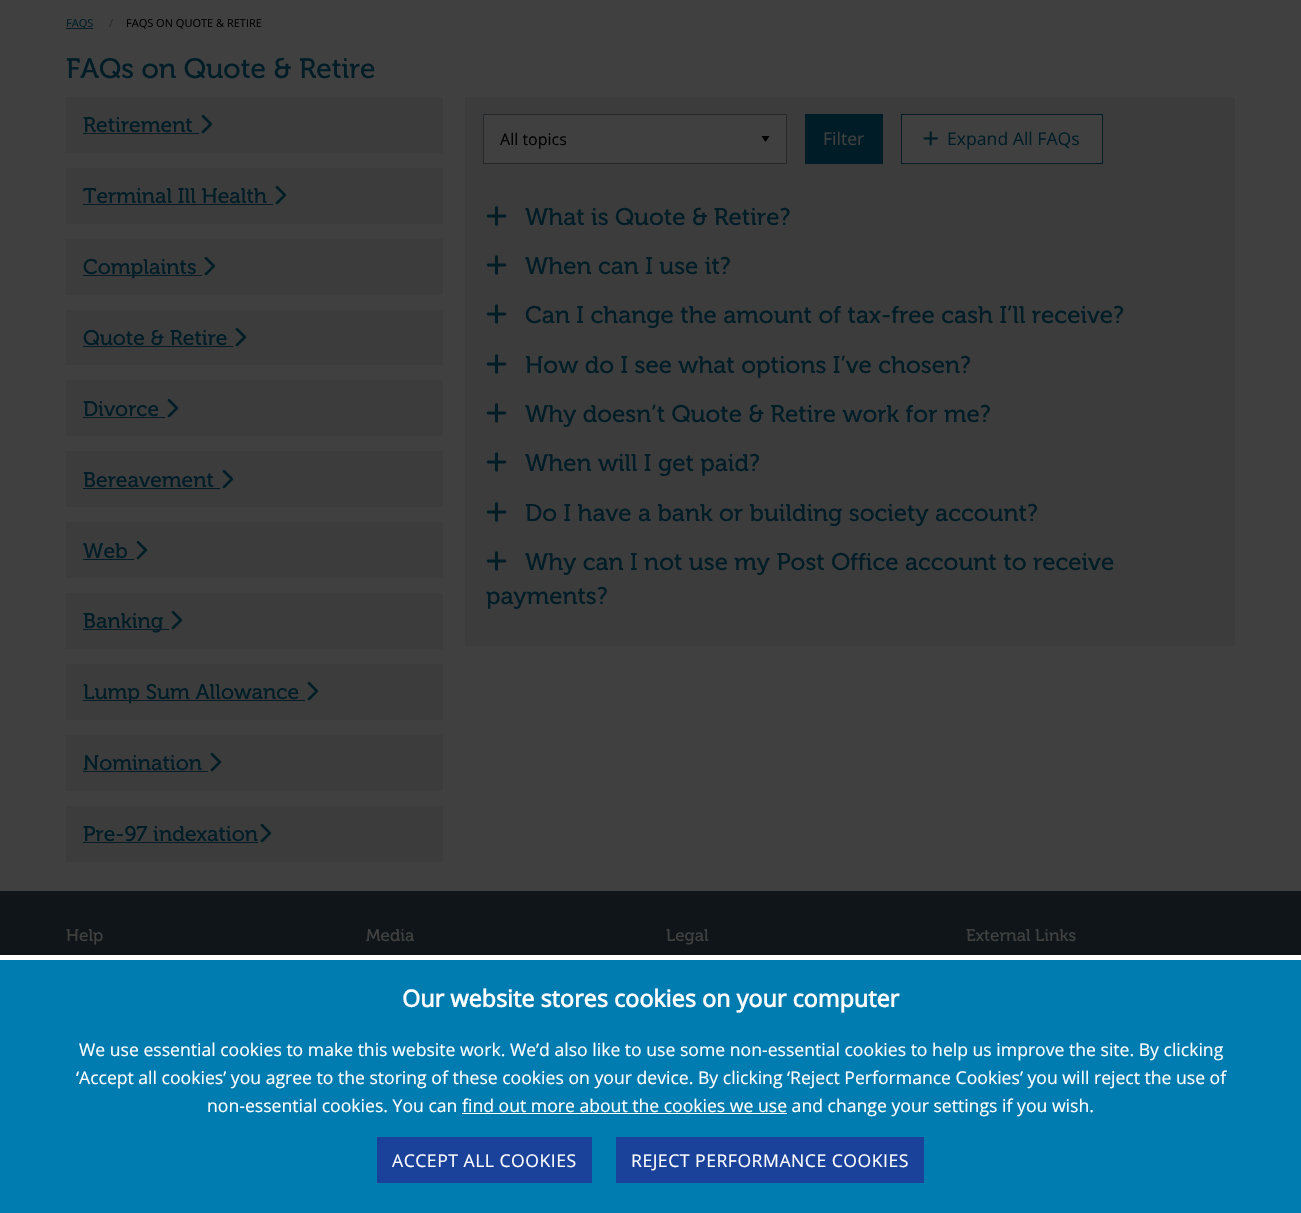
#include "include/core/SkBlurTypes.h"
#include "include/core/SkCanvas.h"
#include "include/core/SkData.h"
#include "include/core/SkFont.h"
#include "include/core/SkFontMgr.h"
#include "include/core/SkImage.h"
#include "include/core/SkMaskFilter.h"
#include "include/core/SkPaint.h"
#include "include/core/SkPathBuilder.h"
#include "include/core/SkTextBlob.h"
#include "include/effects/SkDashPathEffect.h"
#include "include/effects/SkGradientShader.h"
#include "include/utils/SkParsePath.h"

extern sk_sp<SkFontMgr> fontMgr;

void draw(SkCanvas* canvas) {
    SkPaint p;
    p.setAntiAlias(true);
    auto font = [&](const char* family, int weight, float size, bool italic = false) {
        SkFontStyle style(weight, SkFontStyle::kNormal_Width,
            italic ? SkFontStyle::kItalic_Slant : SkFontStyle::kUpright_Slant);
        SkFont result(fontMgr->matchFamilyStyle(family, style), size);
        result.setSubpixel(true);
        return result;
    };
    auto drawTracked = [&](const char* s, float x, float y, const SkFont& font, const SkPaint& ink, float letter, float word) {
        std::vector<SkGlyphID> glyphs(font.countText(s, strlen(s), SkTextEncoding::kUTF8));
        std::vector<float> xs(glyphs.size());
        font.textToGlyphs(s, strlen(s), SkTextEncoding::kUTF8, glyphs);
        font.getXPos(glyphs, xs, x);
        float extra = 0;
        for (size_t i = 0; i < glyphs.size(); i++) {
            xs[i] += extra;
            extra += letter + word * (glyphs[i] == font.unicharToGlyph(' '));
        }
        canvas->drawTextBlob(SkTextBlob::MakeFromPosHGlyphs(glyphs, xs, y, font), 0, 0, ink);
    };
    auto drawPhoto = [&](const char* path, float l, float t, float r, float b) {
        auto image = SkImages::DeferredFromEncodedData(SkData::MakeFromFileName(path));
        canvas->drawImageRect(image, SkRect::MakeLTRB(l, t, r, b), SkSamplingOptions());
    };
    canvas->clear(0xFF404040);
    p.setColor(0xFF001D27);
    canvas->drawRect(SkRect::MakeLTRB(66, 28, 93, 29), p);
    auto font1 = font("Open Sans", 400, 11);
    canvas->drawString("FAQS", 66, 27, font1, p);
    p.setColor(0xFF25282B);
    canvas->drawString("/", 109, 27, font1, p);
    p.setColor(0xFF000000);
    canvas->drawString("FAQS ON QUOTE & RETIRE", 126, 27, font1, p);
    auto font2 = font("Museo", 400, 28);
    p.setColor(0xFF001D27);
    canvas->drawString("FAQs on Quote & Retire", 66, 78, font2, p);
    p.setColor(0xFF3C3C3C);
    canvas->drawRect(SkRect::MakeLTRB(66, 97, 443, 153), p);
    auto font3 = font("Museo", 400, 21.1f);
    p.setColor(0xFF001D27);
    canvas->drawString("Retirement", 83, 132, font3, p);
    canvas->drawRect(SkRect::MakeLTRB(83, 133, 199, 134), p);
    drawPhoto("media/1.png", 201, 114, 213, 134);
    p.setColor(0xFF3C3C3C);
    canvas->drawRect(SkRect::MakeLTRB(66, 168, 443, 224), p);
    p.setColor(0xFF001D27);
    canvas->drawString("Terminal Ill Health", 83, 203, font3, p);
    canvas->drawRect(SkRect::MakeLTRB(83, 204, 273, 205), p);
    drawPhoto("media/1.png", 275, 185, 287, 205);
    p.setColor(0xFF3C3C3C);
    canvas->drawRect(SkRect::MakeLTRB(66, 239, 443, 295), p);
    p.setColor(0xFF001D27);
    canvas->drawRect(SkRect::MakeLTRB(83, 275, 202, 276), p);
    canvas->drawString("Complaints", 83, 274, font3, p);
    drawPhoto("media/1.png", 204, 256, 216, 276);
    p.setColor(0xFF3C3C3C);
    canvas->drawRect(SkRect::MakeLTRB(66, 310, 443, 365), p);
    p.setColor(0xFF001D27);
    canvas->drawString("Quote & Retire", 83, 345, font3, p);
    canvas->drawRect(SkRect::MakeLTRB(83, 346, 233, 347), p);
    drawPhoto("media/1.png", 235, 327, 247, 347);
    p.setColor(0xFF3C3C3C);
    canvas->drawRect(SkRect::MakeLTRB(66, 380, 443, 436), p);
    p.setColor(0xFF001D27);
    canvas->drawString("Divorce", 83, 416, font3, p);
    canvas->drawRect(SkRect::MakeLTRB(83, 417, 165, 418), p);
    drawPhoto("media/1.png", 167, 398, 179, 418);
    p.setColor(0xFF3C3C3C);
    canvas->drawRect(SkRect::MakeLTRB(66, 451, 443, 507), p);
    p.setColor(0xFF001D27);
    canvas->drawString("Bereavement", 83, 487, font3, p);
    canvas->drawRect(SkRect::MakeLTRB(83, 488, 220, 489), p);
    drawPhoto("media/1.png", 222, 469, 234, 489);
    p.setColor(0xFF3C3C3C);
    canvas->drawRect(SkRect::MakeLTRB(66, 522, 443, 578), p);
    p.setColor(0xFF001D27);
    canvas->drawString("Web", 83, 558, font3, p);
    canvas->drawRect(SkRect::MakeLTRB(83, 559, 134, 560), p);
    drawPhoto("media/1.png", 136, 540, 148, 560);
    p.setColor(0xFF3C3C3C);
    canvas->drawRect(SkRect::MakeLTRB(66, 593, 443, 649), p);
    p.setColor(0xFF001D27);
    canvas->drawRect(SkRect::MakeLTRB(83, 629, 169, 630), p);
    canvas->drawString("Banking", 83, 628, font3, p);
    drawPhoto("media/1.png", 171, 610, 183, 630);
    p.setColor(0xFF3C3C3C);
    canvas->drawRect(SkRect::MakeLTRB(66, 664, 443, 720), p);
    p.setColor(0xFF001D27);
    canvas->drawRect(SkRect::MakeLTRB(83, 700, 305, 701), p);
    canvas->drawString("Lump Sum Allowance", 83, 699, font3, p);
    drawPhoto("media/1.png", 307, 681, 319, 701);
    p.setColor(0xFF3C3C3C);
    canvas->drawRect(SkRect::MakeLTRB(66, 735, 443, 791), p);
    p.setColor(0xFF001D27);
    canvas->drawString("Nomination", 83, 770, font3, p);
    canvas->drawRect(SkRect::MakeLTRB(83, 771, 208, 772), p);
    drawPhoto("media/1.png", 210, 752, 222, 772);
    p.setColor(0xFF3C3C3C);
    canvas->drawRect(SkRect::MakeLTRB(66, 806, 443, 862), p);
    p.setColor(0xFF001D27);
    canvas->drawString("Pre-97 indexation", 83, 841, font3, p);
    canvas->drawRect(SkRect::MakeLTRB(83, 842, 258, 843), p);
    drawPhoto("media/1.png", 260, 823, 272, 843);
    p.setColor(0xFF3C3C3C);
    canvas->drawRect(SkRect::MakeLTRB(465, 97, 1235, 646), p);
    p.setColor(0xFF404040);
    canvas->drawRect(SkRect::MakeLTRB(484, 115, 786, 163), p);
    p.setColor(0xFF000000);
    canvas->drawPath(SkPathBuilder().moveTo(761.5f, 136).lineTo(769.5f, 136).lineTo(765.5f, 142).close().detach(), p);
    p.setStyle(SkPaint::kStroke_Style);
    p.setStrokeWidth(1);
    p.setColor(0xFF25282B);
    canvas->drawRect(SkRect::MakeLTRB(483.5f, 114.5f, 786.5f, 163.5f), p);
    auto font4 = font("Open Sans", 400, 16);
    p.setStyle(SkPaint::kFill_Style);
    p.setColor(0xFF000000);
    canvas->drawString("All topics", 500, 145, font4, p);
    p.setColor(0xFF001D27);
    canvas->drawRect(SkRect::MakeLTRB(805, 114, 883, 164), p);
    auto font5 = font("Open Sans", 400, 17.6f);
    p.setColor(0xFF404040);
    canvas->drawString("Filter", 823, 145, font5, p);
    canvas->drawRect(SkRect::MakeLTRB(901.5f, 114.5f, 1102.5f, 163.5f), p);
    p.setStyle(SkPaint::kStroke_Style);
    p.setColor(0xFF001D27);
    canvas->drawRect(SkRect::MakeLTRB(901.5f, 114.5f, 1102.5f, 163.5f), p);
    drawPhoto("media/2.png", 923, 131, 938, 146);
    p.setStyle(SkPaint::kFill_Style);
    canvas->drawString("Expand All FAQs", 947, 145, font5, p);
    drawPhoto("media/3.png", 486, 206, 507, 226);
    auto font6 = font("Museo", 400, 24);
    canvas->drawString("What is Quote & Retire?", 525, 225, font6, p);
    drawPhoto("media/3.png", 486, 255, 507, 275);
    canvas->drawString("When can I use it?", 525, 274, font6, p);
    drawPhoto("media/3.png", 486, 304, 507, 324);
    canvas->drawString("Can I change the amount of tax-free cash I’ll receive?", 525, 323, font6, p);
    drawPhoto("media/3.png", 486, 354, 507, 374);
    canvas->drawString("How do I see what options I’ve chosen?", 525, 373, font6, p);
    drawPhoto("media/3.png", 486, 403, 507, 423);
    canvas->drawString("Why doesn’t Quote & Retire work for me?", 525, 422, font6, p);
    drawPhoto("media/3.png", 486, 452, 507, 472);
    canvas->drawString("When will I get paid?", 525, 471, font6, p);
    drawPhoto("media/3.png", 486, 502, 507, 522);
    canvas->drawString("Do I have a bank or building society account?", 525, 521, font6, p);
    drawPhoto("media/3.png", 486, 551, 507, 571);
    canvas->drawString("Why can I not use my Post Office account to receive", 525, 570, font6, p);
    canvas->drawString("payments?", 486, 604, font6, p);
    p.setColor(0xFF0F1518);
    canvas->drawRect(SkRect::MakeLTRB(0, 891, 1301, 955), p);
    auto font7 = font("Museo", 400, 17);
    p.setColor(0xFF404040);
    {
        const struct { const char* s; float x, y; } items[] = {
            {"Help", 66, 941},
            {"Media", 366, 941},
            {"Legal", 666, 941},
            {"External Links", 966, 941},
        };
        for (auto [s, x, y] : items) {
            canvas->drawString(s, x, y, font7, p);
        }
    }
    p.setColor(0xFF007CB1);
    canvas->drawRect(SkRect::MakeLTRB(0, 960, 1301, 1213), p);
    p.setColor(0xFFFFFFFF);
    canvas->drawRect(SkRect::MakeLTRB(0, 955, 1301, 960), p);
    auto font8 = font("Open Sans", 700, 23.4f);
    canvas->drawString("Our website stores cookies on your computer", 402, 1007, font8, p);
    {
        const struct { const char* s; float x, y; } items[] = {
            {"We use essential cookies to make this website work. We’d also like to use some non-essential cookies to help us improve the site. By clicking", 79, 1056},
            {"‘Accept all cookies’ you agree to the storing of these cookies on your device. By clicking ‘Reject Performance Cookies’ you will reject the use of", 76, 1084},
            {"non-essential cookies. You can find out more about the cookies we use and change your settings if you wish.", 207, 1112},
        };
        for (auto [s, x, y] : items) {
            canvas->drawString(s, x, y, font5, p);
        }
    }
    canvas->drawRect(SkRect::MakeLTRB(462, 1113, 787, 1114), p);
    p.setColor(0xFF1B429A);
    canvas->drawRect(SkRect::MakeLTRB(377, 1137, 592, 1183), p);
    p.setColor(0xFFFFFFFF);
    drawTracked("ACCEPT ALL COOKIES", 392, 1167, font5, p, 0.5f, 0);
    p.setColor(0xFF1B429A);
    canvas->drawRect(SkRect::MakeLTRB(616, 1137, 924, 1183), p);
    p.setColor(0xFFFFFFFF);
    drawTracked("REJECT PERFORMANCE COOKIES", 631, 1167, font5, p, 0.5f, 0);
}
